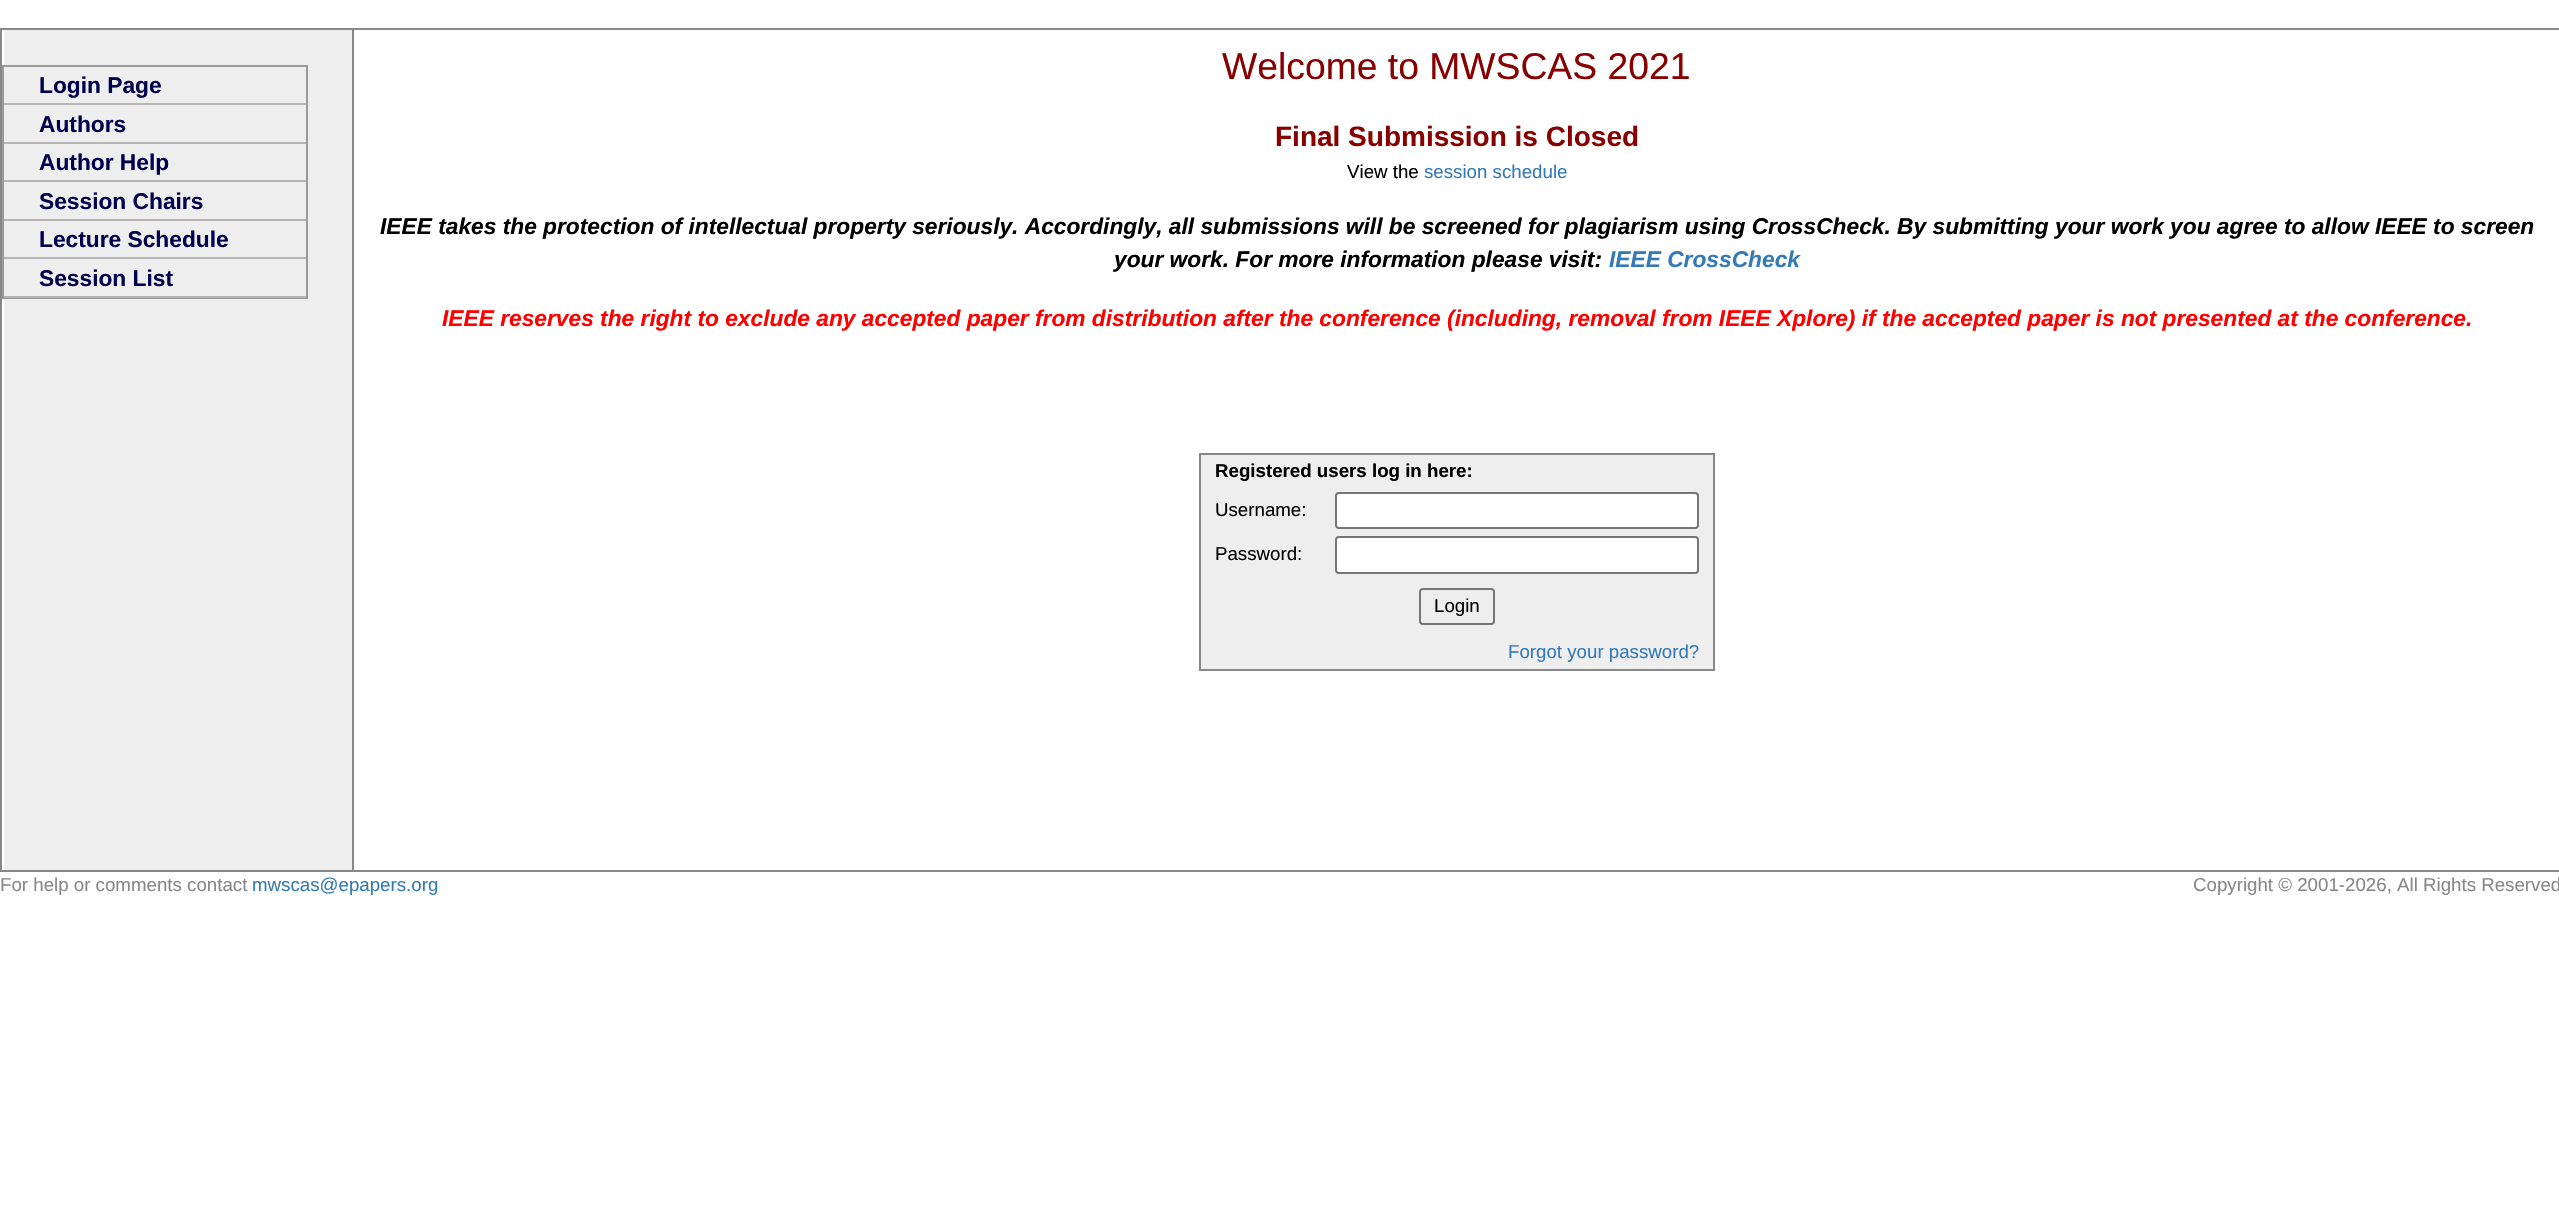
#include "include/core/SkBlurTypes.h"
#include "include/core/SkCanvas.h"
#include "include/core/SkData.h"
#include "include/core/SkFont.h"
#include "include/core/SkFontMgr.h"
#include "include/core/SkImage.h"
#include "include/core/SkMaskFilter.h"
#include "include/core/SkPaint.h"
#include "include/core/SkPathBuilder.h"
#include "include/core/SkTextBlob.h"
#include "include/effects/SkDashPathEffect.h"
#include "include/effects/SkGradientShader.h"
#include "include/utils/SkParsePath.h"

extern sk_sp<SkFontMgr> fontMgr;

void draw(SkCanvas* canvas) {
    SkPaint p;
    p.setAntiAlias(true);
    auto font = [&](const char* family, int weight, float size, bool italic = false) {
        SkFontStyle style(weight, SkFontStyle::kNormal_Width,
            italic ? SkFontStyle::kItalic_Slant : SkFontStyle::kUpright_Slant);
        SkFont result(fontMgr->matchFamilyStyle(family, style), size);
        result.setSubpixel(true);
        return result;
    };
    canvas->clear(0xFFFFFFFF);
    {
        const struct { float l, t, r, b; SkColor color; } items[] = {
            {0, 28, 2559, 30, 0xFF888888},
            {4, 30, 352, 870, 0xFFEEEEEE},
            {352, 30, 354, 872, 0xFF888888},
            {0, 30, 2, 872, 0xFF888888},
        };
        for (auto [l, t, r, b, color] : items) {
            p.setColor(color);
            canvas->drawRect(SkRect::MakeLTRB(l, t, r, b), p);
        }
    }
    p.setStyle(SkPaint::kStroke_Style);
    p.setStrokeWidth(2);
    p.setColor(0xFF9A9A9A);
    canvas->drawRect(SkRect::MakeLTRB(3, 66, 307, 298), p);
    p.setStyle(SkPaint::kFill_Style);
    p.setColor(0xFFB5B5B5);
    canvas->drawRect(SkRect::MakeLTRB(4, 103, 306, 105), p);
    auto font1 = font("Liberation Sans", 700, 22.75f);
    p.setColor(0xFF00014E);
    canvas->drawString("Login Page", 39, 93, font1, p);
    p.setColor(0xFFB5B5B5);
    canvas->drawRect(SkRect::MakeLTRB(4, 142, 306, 144), p);
    p.setColor(0xFF00014E);
    canvas->drawString("Authors", 39, 132, font1, p);
    p.setColor(0xFFB5B5B5);
    canvas->drawRect(SkRect::MakeLTRB(4, 180, 306, 182), p);
    p.setColor(0xFF00014E);
    canvas->drawString("Author Help", 39, 170, font1, p);
    p.setColor(0xFFB5B5B5);
    canvas->drawRect(SkRect::MakeLTRB(4, 219, 306, 221), p);
    p.setColor(0xFF00014E);
    canvas->drawString("Session Chairs", 39, 209, font1, p);
    p.setColor(0xFFB5B5B5);
    canvas->drawRect(SkRect::MakeLTRB(4, 257, 306, 259), p);
    p.setColor(0xFF00014E);
    canvas->drawString("Lecture Schedule", 39, 247, font1, p);
    p.setColor(0xFFB5B5B5);
    canvas->drawRect(SkRect::MakeLTRB(4, 296, 306, 298), p);
    p.setColor(0xFF00014E);
    canvas->drawString("Session List", 39, 286, font1, p);
    auto font2 = font("Liberation Sans", 400, 37.3f);
    p.setColor(0xFF880000);
    canvas->drawString("Welcome to MWSCAS 2021", 1222, 79, font2, p);
    auto font3 = font("Liberation Sans", 700, 28);
    canvas->drawString("Final Submission is Closed", 1275, 146, font3, p);
    auto font4 = font("Liberation Sans", 400, 18.7f);
    p.setColor(0xFF000000);
    canvas->drawString("View the", 1347, 178, font4, p);
    p.setColor(0xFF337AB7);
    canvas->drawString("session schedule", 1424, 178, font4, p);
    auto font5 = font("Liberation Sans", 700, 22.75f, true);
    p.setColor(0xFF000000);
    canvas->drawString("IEEE takes the protection of intellectual property seriously. Accordingly, all submissions will be screened for plagiarism using CrossCheck. By submitting your work you agree to allow IEEE to screen", 380, 234, font5, p);
    canvas->drawString("your work. For more information please visit:", 1114, 267, font5, p);
    p.setColor(0xFF337AB7);
    canvas->drawString("IEEE CrossCheck", 1609, 267, font5, p);
    p.setColor(0xFFFF0000);
    canvas->drawString("IEEE reserves the right to exclude any accepted paper from distribution after the conference (including, removal from IEEE Xplore) if the accepted paper is not presented at the conference.", 442, 326, font5, p);
    {
        const struct { float l, t, r, b; SkColor color; } items[] = {
            {1201, 455, 1713, 669, 0xFFEEEEEE},
            {1199, 453, 1715, 455, 0xFF888888},
            {1713, 453, 1715, 670, 0xFF888888},
            {1199, 669, 1715, 671, 0xFF888888},
            {1199, 453, 1201, 670, 0xFF888888},
        };
        for (auto [l, t, r, b, color] : items) {
            p.setColor(color);
            canvas->drawRect(SkRect::MakeLTRB(l, t, r, b), p);
        }
    }
    auto font6 = font("Liberation Sans", 700, 18.7f);
    p.setColor(0xFF000000);
    canvas->drawString("Registered users log in here:", 1215, 477, font6, p);
    canvas->drawString("Username:", 1215, 516, font4, p);
    p.setColor(0xFFFFFFFF);
    canvas->drawRoundRect(SkRect::MakeLTRB(1336, 493, 1698, 528), 3, 3, p);
    p.setStyle(SkPaint::kStroke_Style);
    p.setColor(0xFF767676);
    canvas->drawRoundRect(SkRect::MakeLTRB(1336, 493, 1698, 528), 3, 3, p);
    p.setStyle(SkPaint::kFill_Style);
    p.setColor(0xFF000000);
    canvas->drawString("Password:", 1215, 560, font4, p);
    p.setColor(0xFFFFFFFF);
    canvas->drawRoundRect(SkRect::MakeLTRB(1336, 537, 1698, 573), 3, 3, p);
    p.setStyle(SkPaint::kStroke_Style);
    p.setColor(0xFF767676);
    canvas->drawRoundRect(SkRect::MakeLTRB(1336, 537, 1698, 573), 3, 3, p);
    canvas->drawRoundRect(SkRect::MakeLTRB(1420, 589, 1494, 624), 3, 3, p);
    p.setStyle(SkPaint::kFill_Style);
    p.setColor(0xFF000000);
    canvas->drawString("Login", 1434, 612, font4, p);
    p.setColor(0xFF337AB7);
    canvas->drawString("Forgot your password?", 1508, 658, font4, p);
    p.setColor(0xFF888888);
    canvas->drawString("For help or comments contact", 0, 891, font4, p);
    p.setColor(0xFF337AB7);
    canvas->drawString("mwscas@epapers.org", 252, 891, font4, p);
    p.setColor(0xFF888888);
    canvas->drawRect(SkRect::MakeLTRB(0, 870, 2559, 872), p);
    canvas->drawString("Copyright © 2001-2026, All Rights Reserved", 2193, 891, font4, p);
}
